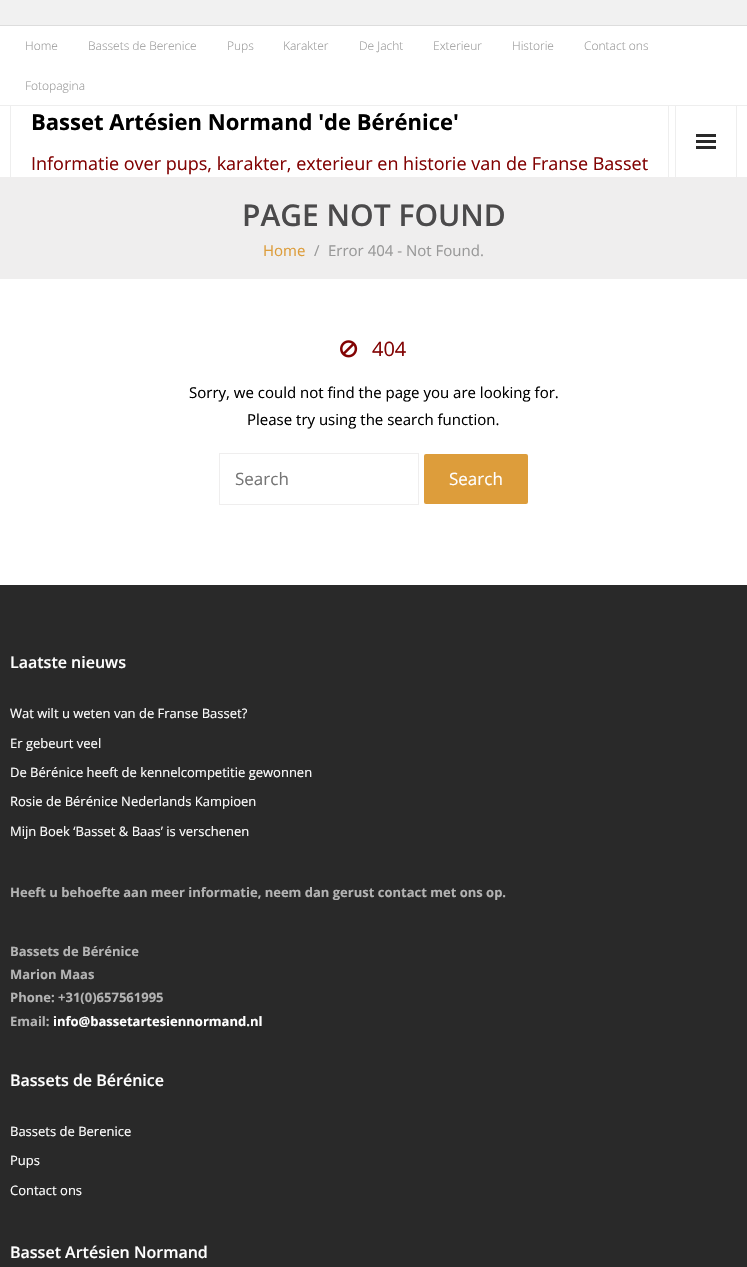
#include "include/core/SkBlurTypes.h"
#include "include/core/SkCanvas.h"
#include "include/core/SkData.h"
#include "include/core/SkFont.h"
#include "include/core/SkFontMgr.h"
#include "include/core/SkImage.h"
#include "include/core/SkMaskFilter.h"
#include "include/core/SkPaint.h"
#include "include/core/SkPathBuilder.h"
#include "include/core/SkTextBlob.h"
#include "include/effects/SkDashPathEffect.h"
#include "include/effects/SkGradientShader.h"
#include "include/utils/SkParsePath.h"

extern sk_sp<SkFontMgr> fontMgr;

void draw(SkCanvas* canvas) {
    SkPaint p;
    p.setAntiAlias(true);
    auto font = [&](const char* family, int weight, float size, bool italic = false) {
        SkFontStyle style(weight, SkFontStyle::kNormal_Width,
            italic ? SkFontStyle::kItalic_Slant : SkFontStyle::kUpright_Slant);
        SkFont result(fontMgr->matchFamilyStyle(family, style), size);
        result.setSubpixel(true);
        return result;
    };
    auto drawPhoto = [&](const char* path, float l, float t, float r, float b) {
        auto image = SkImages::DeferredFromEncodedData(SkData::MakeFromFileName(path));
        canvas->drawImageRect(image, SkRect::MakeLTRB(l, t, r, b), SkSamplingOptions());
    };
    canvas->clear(0xFFF1F1F1);
    {
        const struct { float l, t, r, b; SkColor color; } items[] = {
            {0, 26, 747, 585, 0xFFFFFFFF},
            {0, 25, 747, 26, 0xFFDDDDDD},
            {0, 105, 747, 106, 0xFFEEEEEE},
        };
        for (auto [l, t, r, b, color] : items) {
            p.setColor(color);
            canvas->drawRect(SkRect::MakeLTRB(l, t, r, b), p);
        }
    }
    auto font1 = font("Open Sans", 300, 12);
    p.setColor(0xFF999999);
    {
        const struct { const char* s; float x, y; } items[] = {
            {"Home", 25, 50},
            {"Bassets de Berenice", 88, 50},
            {"Pups", 227, 50},
            {"Karakter", 283, 50},
            {"De Jacht", 359, 50},
            {"Exterieur", 433, 50},
            {"Historie", 512, 50},
            {"Contact ons", 584, 50},
            {"Fotopagina", 25, 90},
        };
        for (auto [s, x, y] : items) {
            canvas->drawString(s, x, y, font1, p);
        }
    }
    p.setColor(0xFFEEEEEE);
    canvas->drawRect(SkRect::MakeLTRB(668, 106, 669, 177), p);
    canvas->drawRect(SkRect::MakeLTRB(10, 106, 11, 177), p);
    auto font2 = font("Open Sans", 700, 22);
    p.setColor(0xFF000000);
    canvas->drawString("Basset Artésien Normand 'de Bérénice'", 31, 130, font2, p);
    auto font3 = font("Open Sans", 400, 18);
    p.setColor(0xFF820303);
    canvas->drawString("Informatie over pups, karakter, exterieur en historie van de Franse Basset", 31, 170, font3, p);
    {
        const struct { float l, t, r, b; SkColor color; } items[] = {
            {736, 106, 737, 177, 0xFFEEEEEE},
            {675, 106, 676, 177, 0xFFEEEEEE},
            {696, 134, 716, 137, 0xFF292929},
            {696, 140, 716, 143, 0xFF292929},
            {696, 146, 716, 149, 0xFF292929},
            {0, 177, 747, 279, 0xFFEFEEEE},
        };
        for (auto [l, t, r, b, color] : items) {
            p.setColor(color);
            canvas->drawRect(SkRect::MakeLTRB(l, t, r, b), p);
        }
    }
    auto font4 = font("Open Sans", 600, 30);
    p.setColor(0xFF4B4A4B);
    canvas->drawString("PAGE NOT FOUND", 242, 226, font4, p);
    auto font5 = font("Open Sans", 400, 15);
    p.setColor(0xFFDD9D3B);
    canvas->drawString("Home", 263, 256, font5, p);
    p.setColor(0xFF999999);
    canvas->drawString("/", 314, 256, font5, p);
    canvas->drawString("Error 404 - Not Found.", 328, 256, font5, p);
    drawPhoto("media/1.png", 340, 340, 358, 358);
    auto font6 = font("Open Sans", 400, 20);
    p.setColor(0xFF820303);
    canvas->drawString("404", 372, 356, font6, p);
    p.setColor(0xFF000000);
    canvas->drawString("Sorry, we could not find the page you are looking for.", 189, 398, font5, p);
    canvas->drawString("Please try using the search function.", 247, 425, font5, p);
    p.setStyle(SkPaint::kStroke_Style);
    p.setStrokeWidth(1);
    p.setColor(0xFFEFEEEE);
    canvas->drawRect(SkRect::MakeLTRB(219.5f, 453.5f, 418.5f, 504.5f), p);
    auto font7 = font("Open Sans", 400, 17);
    p.setStyle(SkPaint::kFill_Style);
    p.setColor(0xFF757575);
    canvas->drawString("Search", 235, 485, font7, p);
    p.setColor(0xFFDD9D3B);
    canvas->drawRoundRect(SkRect::MakeLTRB(424, 454, 528, 504), 2, 2, p);
    p.setColor(0xFFFFFFFF);
    canvas->drawString("Search", 449, 485, font7, p);
    p.setColor(0xFF292929);
    canvas->drawRect(SkRect::MakeLTRB(0, 585, 747, 1267), p);
    auto font8 = font("Open Sans", 600, 16);
    p.setColor(0xFFFFFFFF);
    canvas->drawString("Laatste nieuws", 10, 668, font8, p);
    auto font9 = font("Open Sans", 400, 13);
    {
        const struct { const char* s; float x, y; } items[] = {
            {"Wat wilt u weten van de Franse Basset?", 10, 718},
            {"Er gebeurt veel", 10, 748},
            {"De Bérénice heeft de kennelcompetitie gewonnen", 10, 777},
            {"Rosie de Bérénice Nederlands Kampioen", 10, 806},
            {"Mijn Boek ‘Basset & Baas’ is verschenen", 10, 836},
        };
        for (auto [s, x, y] : items) {
            canvas->drawString(s, x, y, font9, p);
        }
    }
    auto font10 = font("Open Sans", 700, 13);
    p.setColor(0xFFB3B3B3);
    {
        const struct { const char* s; float x, y; } items[] = {
            {"Heeft u behoefte aan meer informatie, neem dan gerust contact met ons op.", 10, 897},
            {"Bassets de Bérénice", 10, 956},
            {"Marion Maas", 10, 979},
            {"Phone: +31(0)657561995", 10, 1002},
            {"Email:", 10, 1026},
        };
        for (auto [s, x, y] : items) {
            canvas->drawString(s, x, y, font10, p);
        }
    }
    p.setColor(0xFFFFFFFF);
    canvas->drawString("info@bassetartesiennormand.nl", 53, 1026, font10, p);
    canvas->drawString("Bassets de Bérénice", 10, 1086, font8, p);
    {
        const struct { const char* s; float x, y; } items[] = {
            {"Bassets de Berenice", 10, 1136},
            {"Pups", 10, 1165},
            {"Contact ons", 10, 1195},
        };
        for (auto [s, x, y] : items) {
            canvas->drawString(s, x, y, font9, p);
        }
    }
    canvas->drawString("Basset Artésien Normand", 10, 1258, font8, p);
}
